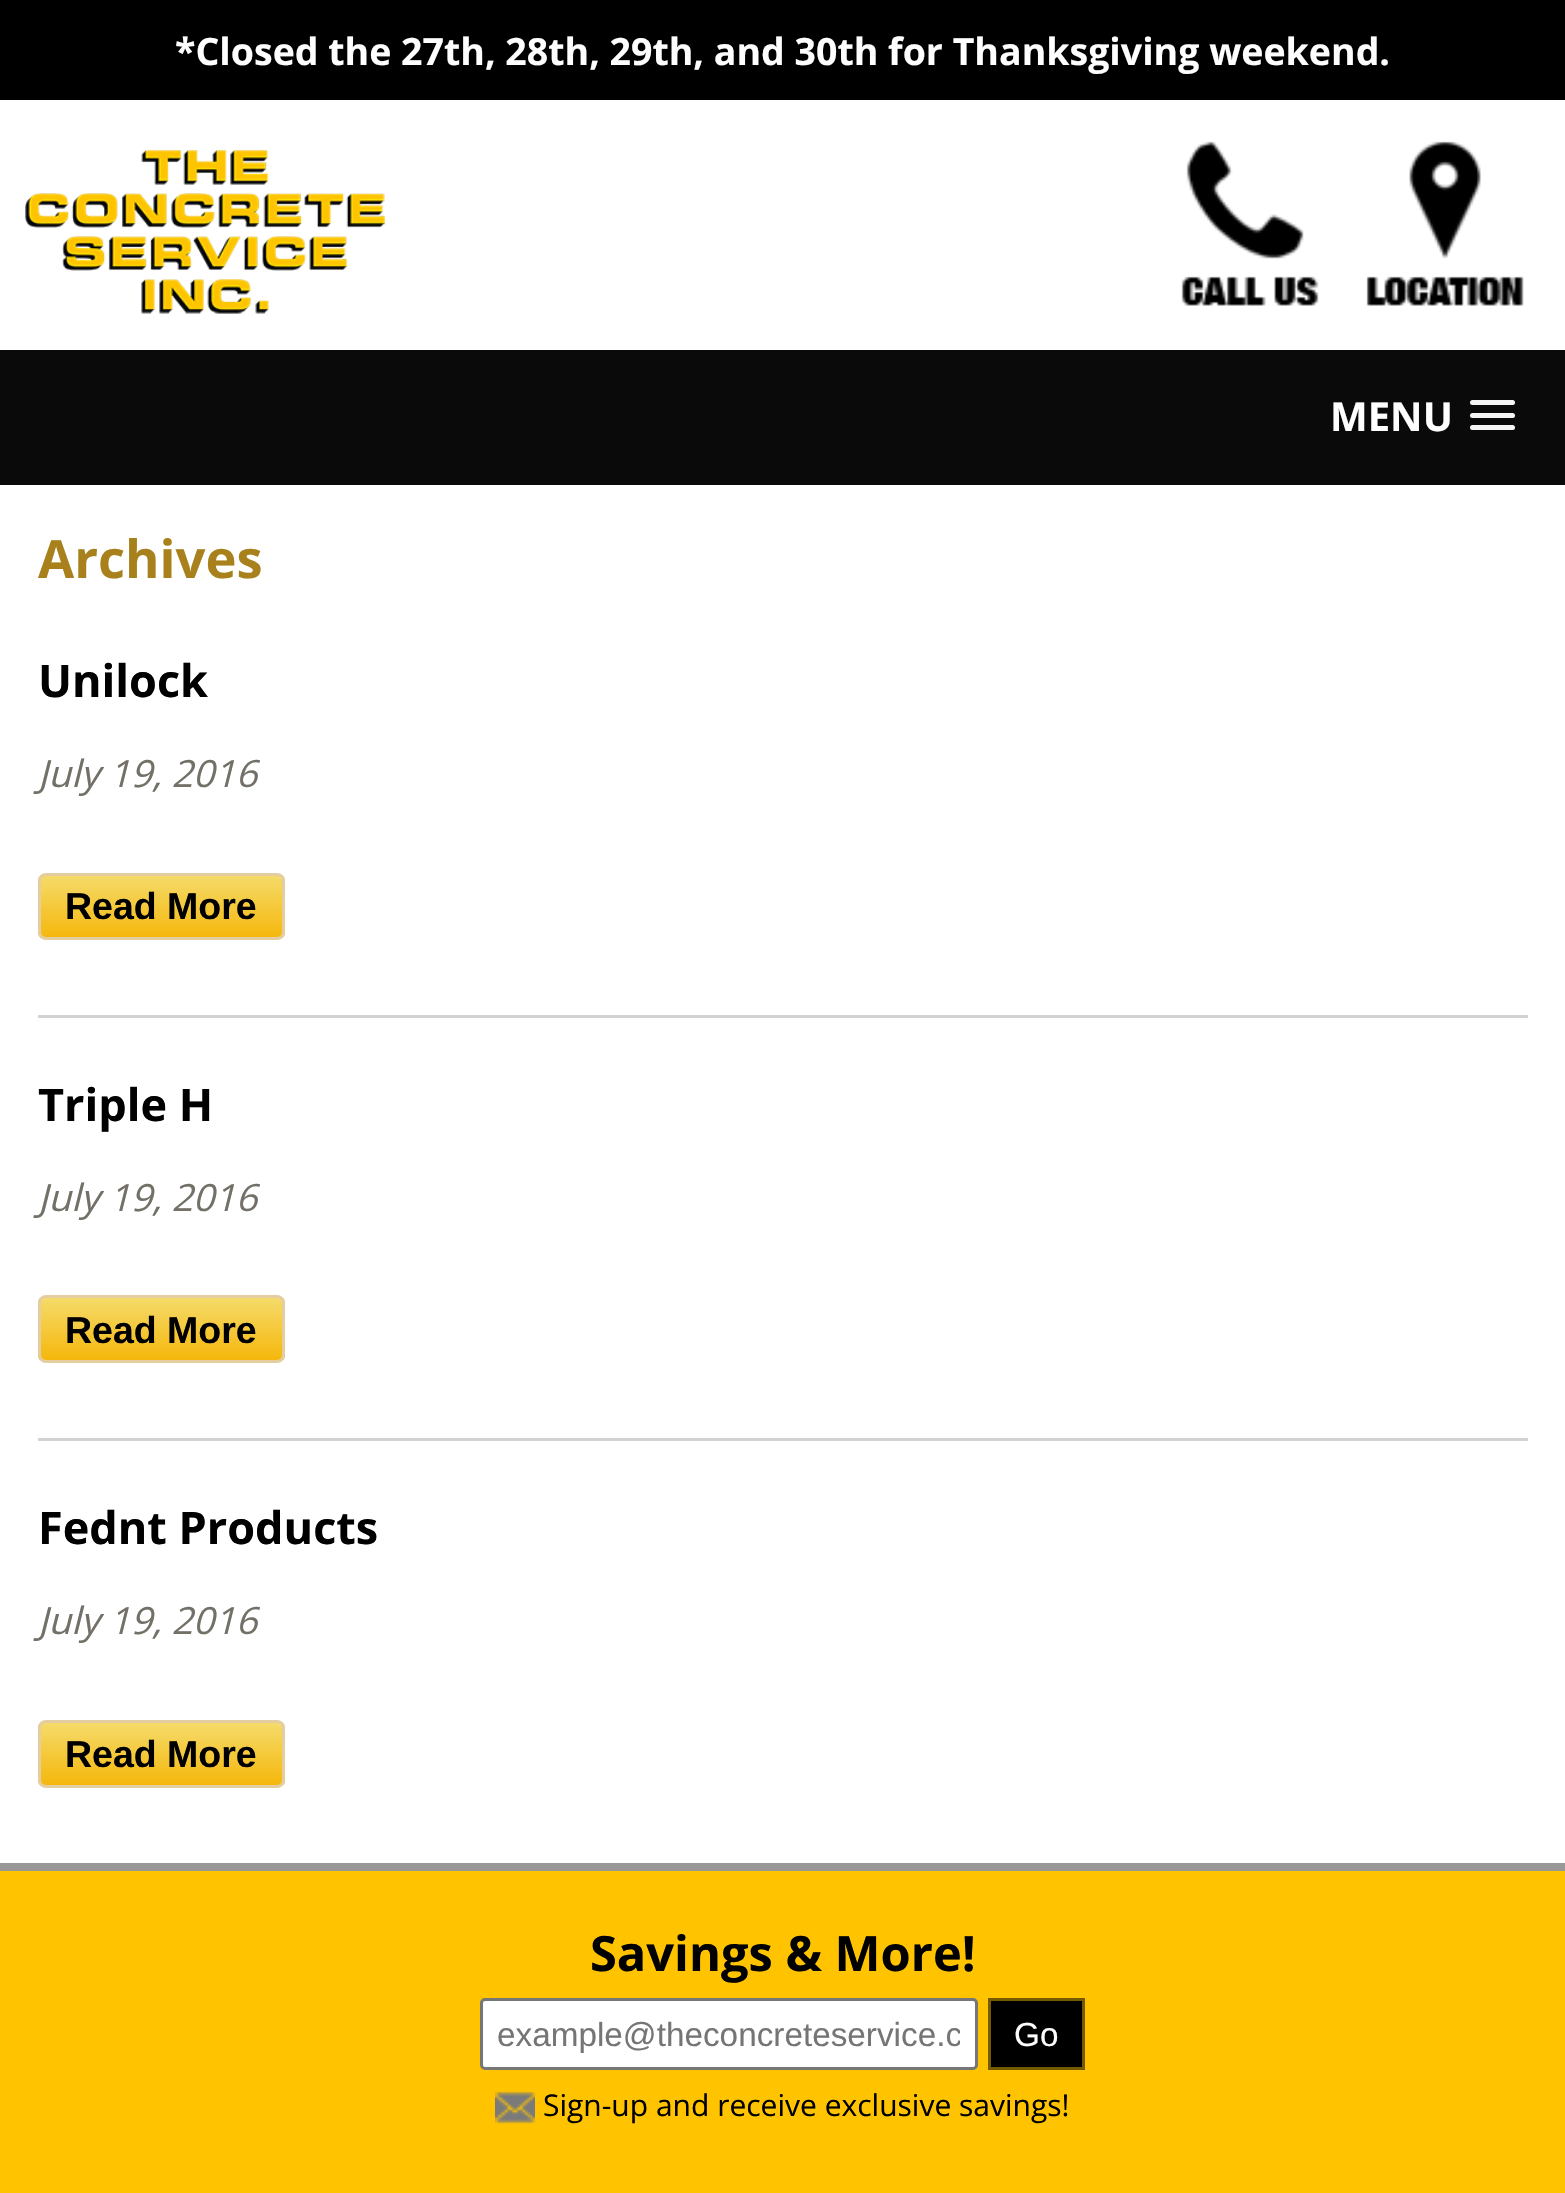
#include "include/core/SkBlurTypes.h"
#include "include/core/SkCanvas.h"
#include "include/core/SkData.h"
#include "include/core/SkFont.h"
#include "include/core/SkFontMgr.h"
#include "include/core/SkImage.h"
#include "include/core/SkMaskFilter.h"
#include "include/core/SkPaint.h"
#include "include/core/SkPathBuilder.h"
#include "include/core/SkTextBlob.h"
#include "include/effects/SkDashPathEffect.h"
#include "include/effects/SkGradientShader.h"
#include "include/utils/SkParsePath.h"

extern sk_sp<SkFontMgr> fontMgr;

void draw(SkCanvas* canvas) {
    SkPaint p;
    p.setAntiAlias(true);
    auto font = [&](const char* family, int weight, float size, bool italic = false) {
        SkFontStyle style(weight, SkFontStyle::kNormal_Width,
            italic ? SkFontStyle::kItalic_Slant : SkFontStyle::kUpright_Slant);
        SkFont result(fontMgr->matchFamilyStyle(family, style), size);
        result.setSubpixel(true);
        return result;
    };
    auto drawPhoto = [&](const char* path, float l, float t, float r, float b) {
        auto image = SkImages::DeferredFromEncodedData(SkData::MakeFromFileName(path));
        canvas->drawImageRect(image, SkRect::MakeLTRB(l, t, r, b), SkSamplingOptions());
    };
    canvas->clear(0xFFFFFFFF);
    p.setColor(0xFF000000);
    canvas->drawRect(SkRect::MakeLTRB(0, 0, 1565, 100), p);
    auto font1 = font("Open Sans", 700, 37.5f);
    p.setColor(0xFFFEFEFE);
    canvas->drawString("*Closed the 27th, 28th, 29th, and 30th for Thanksgiving weekend.", 175, 65, font1, p);
    drawPhoto("media/1.png", 25, 150, 385, 314);
    drawPhoto("media/2.png", 1181, 141, 1319, 306);
    drawPhoto("media/3.png", 1366, 141, 1524, 306);
    p.setColor(0xFF0A0A0A);
    canvas->drawRect(SkRect::MakeLTRB(0, 350, 1565, 485), p);
    auto font2 = font("Open Sans", 700, 40);
    p.setColor(0xFFFEFEFE);
    canvas->drawString("MENU", 1330, 431, font2, p);
    p.setColor(0xFFF5F5F5);
    canvas->drawRoundRect(SkRect::MakeLTRB(1470, 400, 1515, 405), 2.5f, 2.5f, p);
    canvas->drawRoundRect(SkRect::MakeLTRB(1470, 413, 1515, 418), 2.5f, 2.5f, p);
    canvas->drawRoundRect(SkRect::MakeLTRB(1470, 425, 1515, 430), 2.5f, 2.5f, p);
    auto font3 = font("Open Sans", 700, 52.5f);
    p.setColor(0xFFA8811C);
    canvas->drawString("Archives", 38, 578, font3, p);
    p.setColor(0xFFD2D2D2);
    canvas->drawRect(SkRect::MakeLTRB(38, 1015, 1528, 1018), p);
    auto font4 = font("Open Sans", 700, 45);
    p.setColor(0xFF000000);
    canvas->drawString("Unilock", 38, 697, font4, p);
    auto font5 = font("Open Sans", 400, 37.5f, true);
    p.setColor(0xFF737068);
    canvas->drawString("July 19, 2016", 38, 787, font5, p);
    canvas->save();
    canvas->clipPath(SkPathBuilder().moveTo(46, 873).lineTo(277, 873).cubicTo(281.5f, 873, 285, 876.5f, 285, 881).lineTo(285, 932).cubicTo(285, 936.5f, 281.5f, 940, 277, 940).lineTo(46, 940).cubicTo(41.5f, 940, 38, 936.5f, 38, 932).lineTo(38, 881).cubicTo(38, 876.5f, 41.5f, 873, 46, 873).close().detach(), true);
    {
        const SkColor colors[] = {0xFFF5DB6A, 0xFFF5B70C};
        const float stops[] = {0, 1};
        const SkPoint ends[] = {{161, 875}, {161, 938}};
        p.setShader(SkGradientShader::MakeLinear(ends, colors, stops, 2, SkTileMode::kClamp));
        p.setAlpha(255);
    }
    canvas->drawRect(SkRect::MakeLTRB(38, 875, 285, 938), p);
    canvas->restore();
    p.setStyle(SkPaint::kStroke_Style);
    p.setStrokeWidth(3);
    p.setShader(nullptr);
    p.setColor(0xFFE3CDA1);
    canvas->drawRoundRect(SkRect::MakeLTRB(39.5f, 874.5f, 283.5f, 938.5f), 6.5f, 6.5f, p);
    auto font6 = font("Liberation Sans", 700, 37.5f);
    p.setStyle(SkPaint::kFill_Style);
    p.setColor(0xFF000000);
    canvas->drawString("Read More", 65, 919, font6, p);
    p.setColor(0xFFD2D2D2);
    canvas->drawRect(SkRect::MakeLTRB(38, 1438, 1528, 1441), p);
    p.setColor(0xFF000000);
    canvas->drawString("Triple H", 38, 1121, font4, p);
    p.setColor(0xFF737068);
    canvas->drawString("July 19, 2016", 38, 1211, font5, p);
    canvas->save();
    canvas->clipPath(SkPathBuilder().moveTo(46, 1295).lineTo(277, 1295).cubicTo(281.5f, 1295, 285, 1298.5f, 285, 1303).lineTo(285, 1355).cubicTo(285, 1359.5f, 281.5f, 1363, 277, 1363).lineTo(46, 1363).cubicTo(41.5f, 1363, 38, 1359.5f, 38, 1355).lineTo(38, 1303).cubicTo(38, 1298.5f, 41.5f, 1295, 46, 1295).close().detach(), true);
    {
        const SkColor colors[] = {0xFFF5DB6A, 0xFFF5B70C};
        const float stops[] = {0, 1};
        const SkPoint ends[] = {{161, 1298}, {161, 1360}};
        p.setShader(SkGradientShader::MakeLinear(ends, colors, stops, 2, SkTileMode::kClamp));
        p.setAlpha(255);
    }
    canvas->drawRect(SkRect::MakeLTRB(38, 1298, 285, 1360), p);
    canvas->restore();
    p.setStyle(SkPaint::kStroke_Style);
    p.setShader(nullptr);
    p.setColor(0xFFE3CDA1);
    canvas->drawRoundRect(SkRect::MakeLTRB(39.5f, 1296.5f, 283.5f, 1361.5f), 6.5f, 6.5f, p);
    p.setStyle(SkPaint::kFill_Style);
    p.setColor(0xFF000000);
    canvas->drawString("Read More", 65, 1343, font6, p);
    canvas->drawString("Fednt Products", 38, 1544, font4, p);
    p.setColor(0xFF737068);
    canvas->drawString("July 19, 2016", 38, 1634, font5, p);
    canvas->save();
    canvas->clipPath(SkPathBuilder().moveTo(46, 1720).lineTo(277, 1720).cubicTo(281.5f, 1720, 285, 1723.5f, 285, 1728).lineTo(285, 1780).cubicTo(285, 1784.5f, 281.5f, 1788, 277, 1788).lineTo(46, 1788).cubicTo(41.5f, 1788, 38, 1784.5f, 38, 1780).lineTo(38, 1728).cubicTo(38, 1723.5f, 41.5f, 1720, 46, 1720).close().detach(), true);
    {
        const SkColor colors[] = {0xFFF5DB6A, 0xFFF5B70C};
        const float stops[] = {0, 1};
        const SkPoint ends[] = {{161, 1723}, {161, 1785}};
        p.setShader(SkGradientShader::MakeLinear(ends, colors, stops, 2, SkTileMode::kClamp));
        p.setAlpha(255);
    }
    canvas->drawRect(SkRect::MakeLTRB(38, 1723, 285, 1785), p);
    canvas->restore();
    p.setStyle(SkPaint::kStroke_Style);
    p.setShader(nullptr);
    p.setColor(0xFFE3CDA1);
    canvas->drawRoundRect(SkRect::MakeLTRB(39.5f, 1721.5f, 283.5f, 1786.5f), 6.5f, 6.5f, p);
    p.setStyle(SkPaint::kFill_Style);
    p.setColor(0xFF000000);
    canvas->drawString("Read More", 65, 1767, font6, p);
    p.setColor(0xFFFFC300);
    canvas->drawRect(SkRect::MakeLTRB(0, 1871, 1565, 2193), p);
    p.setColor(0xFF989898);
    canvas->drawRect(SkRect::MakeLTRB(0, 1863, 1565, 1871), p);
    auto font7 = font("Open Sans", 700, 48.75f);
    p.setColor(0xFF000000);
    canvas->drawString("Savings & More!", 590, 1971, font7, p);
    p.setColor(0xFFFFFFFF);
    canvas->drawRoundRect(SkRect::MakeLTRB(481.5f, 1999.5f, 976.5f, 2068.5f), 3.5f, 3.5f, p);
    p.setStyle(SkPaint::kStroke_Style);
    p.setColor(0xFF767676);
    canvas->drawRoundRect(SkRect::MakeLTRB(481.5f, 1999.5f, 976.5f, 2068.5f), 3.5f, 3.5f, p);
    canvas->save();
    canvas->clipRect(SkRect::MakeLTRB(498, 2015, 960, 2053));
    auto font8 = font("Liberation Sans", 400, 33.3f);
    p.setStyle(SkPaint::kFill_Style);
    p.setColor(0xFF757575);
    canvas->drawString("example@theconcreteservice.c", 497, 2046, font8, p);
    canvas->restore();
    p.setColor(0xFF000000);
    canvas->drawRect(SkRect::MakeLTRB(989.5f, 1999.5f, 1083.5f, 2068.5f), p);
    p.setStyle(SkPaint::kStroke_Style);
    p.setColor(0xFF755A00);
    canvas->drawRect(SkRect::MakeLTRB(989.5f, 1999.5f, 1083.5f, 2068.5f), p);
    p.setStyle(SkPaint::kFill_Style);
    p.setColor(0xFFFEFEFE);
    canvas->drawString("Go", 1014, 2046, font8, p);
    drawPhoto("media/4.png", 495, 2091, 535, 2124);
    auto font9 = font("Open Sans", 400, 30);
    p.setColor(0xFF000000);
    canvas->drawString("Sign-up and receive exclusive savings!", 543, 2116, font9, p);
}
